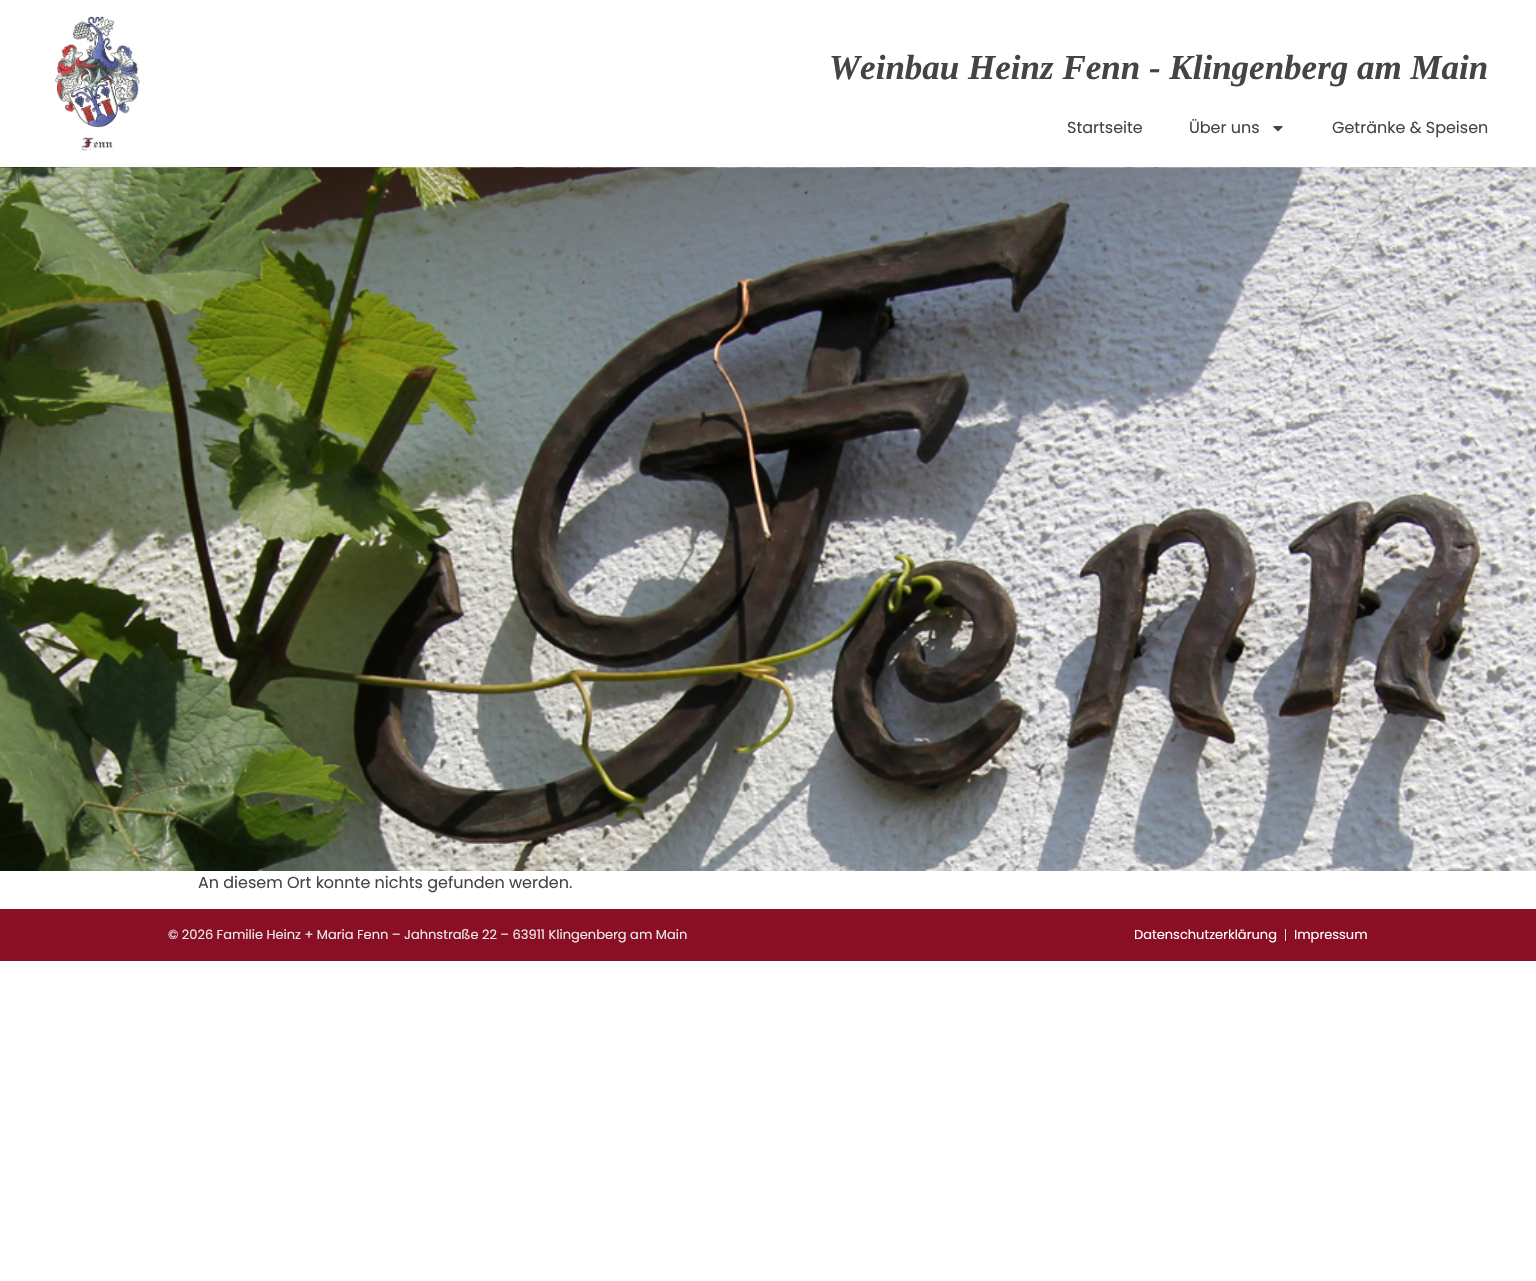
#include "include/core/SkBlurTypes.h"
#include "include/core/SkCanvas.h"
#include "include/core/SkData.h"
#include "include/core/SkFont.h"
#include "include/core/SkFontMgr.h"
#include "include/core/SkImage.h"
#include "include/core/SkMaskFilter.h"
#include "include/core/SkPaint.h"
#include "include/core/SkPathBuilder.h"
#include "include/core/SkTextBlob.h"
#include "include/effects/SkDashPathEffect.h"
#include "include/effects/SkGradientShader.h"
#include "include/utils/SkParsePath.h"

extern sk_sp<SkFontMgr> fontMgr;

void draw(SkCanvas* canvas) {
    SkPaint p;
    p.setAntiAlias(true);
    auto font = [&](const char* family, int weight, float size, bool italic = false) {
        SkFontStyle style(weight, SkFontStyle::kNormal_Width,
            italic ? SkFontStyle::kItalic_Slant : SkFontStyle::kUpright_Slant);
        SkFont result(fontMgr->matchFamilyStyle(family, style), size);
        result.setSubpixel(true);
        return result;
    };
    auto drawPhoto = [&](const char* path, float l, float t, float r, float b) {
        auto image = SkImages::DeferredFromEncodedData(SkData::MakeFromFileName(path));
        canvas->drawImageRect(image, SkRect::MakeLTRB(l, t, r, b), SkSamplingOptions());
    };
    canvas->clear(0xFFFFFFFF);
    drawPhoto("media/1.png", 55, 16, 140, 151);
    auto font1 = font("Liberation Serif", 700, 35, true);
    p.setColor(0xFF444444);
    canvas->drawString("Weinbau Heinz Fenn - Klingenberg am Main", 829, 79, font1, p);
    auto font2 = font("Poppins", 400, 16);
    canvas->drawString("Startseite", 1067, 133, font2, p);
    canvas->drawString("Über uns", 1189, 133, font2, p);
    drawPhoto("media/2.png", 1273, 126, 1283, 132);
    canvas->drawString("Getränke & Speisen", 1332, 133, font2, p);
    drawPhoto("media/3.png", 0, 167, 1536, 871);
    canvas->drawString("An diesem Ort konnte nichts gefunden werden.", 198, 888, font2, p);
    p.setColor(0xFF8A0F24);
    canvas->drawRect(SkRect::MakeLTRB(0, 909, 1536, 961), p);
    auto font3 = font("Poppins", 400, 13);
    p.setColor(0xFFE9E9E9);
    canvas->drawString("© 2026 Familie Heinz + Maria Fenn – Jahnstraße 22 – 63911 Klingenberg am Main", 168, 939, font3, p);
    p.setColor(0xFFFFFFFF);
    canvas->drawString("Datenschutzerklärung", 1134, 939, font3, p);
    p.setColor(0xFFDDDDDD);
    canvas->drawRect(SkRect::MakeLTRB(1285, 929, 1286, 941), p);
    p.setColor(0xFFFFFFFF);
    canvas->drawString("Impressum", 1294, 939, font3, p);
}
